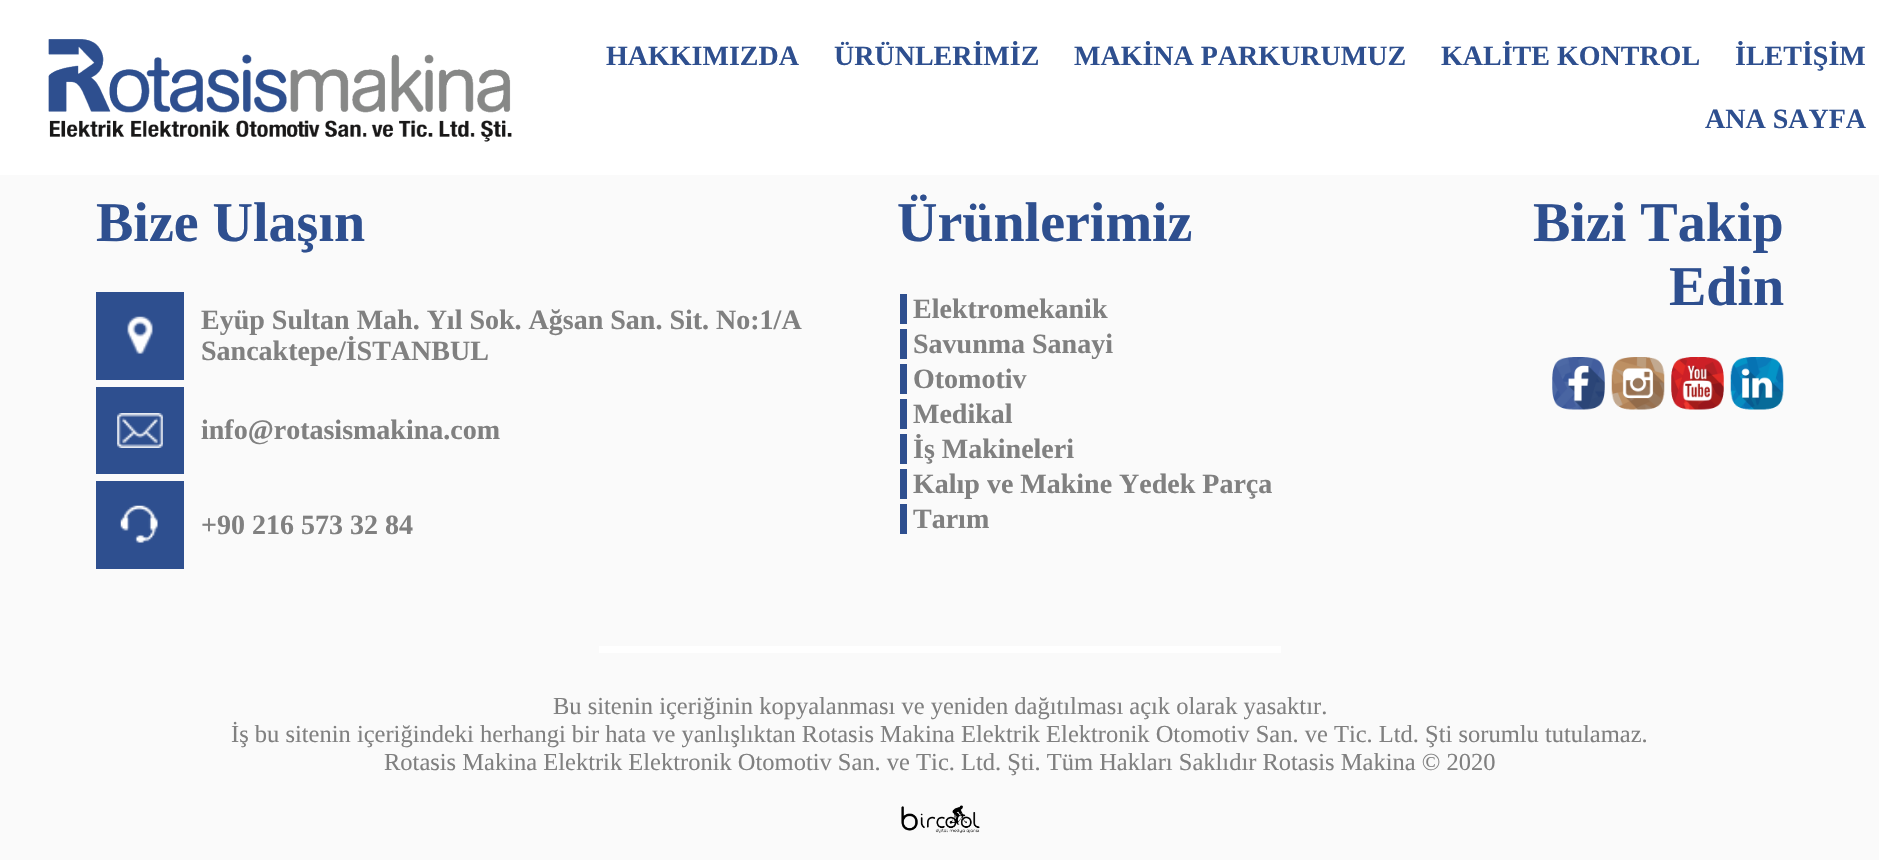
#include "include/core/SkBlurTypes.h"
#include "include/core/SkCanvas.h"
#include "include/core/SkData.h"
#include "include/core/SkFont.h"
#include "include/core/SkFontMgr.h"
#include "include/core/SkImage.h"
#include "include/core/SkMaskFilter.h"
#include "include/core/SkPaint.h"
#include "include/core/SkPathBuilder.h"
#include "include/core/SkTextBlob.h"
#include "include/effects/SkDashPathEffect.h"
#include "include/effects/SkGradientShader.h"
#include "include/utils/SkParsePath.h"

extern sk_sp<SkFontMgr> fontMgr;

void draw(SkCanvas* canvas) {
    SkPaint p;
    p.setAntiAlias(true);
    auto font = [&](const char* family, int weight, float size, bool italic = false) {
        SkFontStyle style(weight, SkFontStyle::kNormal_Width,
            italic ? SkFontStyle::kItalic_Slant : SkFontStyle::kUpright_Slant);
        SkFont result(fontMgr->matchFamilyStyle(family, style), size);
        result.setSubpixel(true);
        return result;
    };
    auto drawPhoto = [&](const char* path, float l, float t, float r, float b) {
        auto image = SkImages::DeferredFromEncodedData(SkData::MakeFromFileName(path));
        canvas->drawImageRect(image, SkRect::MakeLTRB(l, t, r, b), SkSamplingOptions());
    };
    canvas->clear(0xFFFAFAFA);
    p.setColor(0xFFFFFFFF);
    canvas->drawRect(SkRect::MakeLTRB(0, 0, 1879, 175), p);
    drawPhoto("media/1.png", 48, 39, 512, 142);
    auto font1 = font("Liberation Serif", 700, 28);
    p.setColor(0xFF2E4F8F);
    {
        const struct { const char* s; float x, y; } items[] = {
            {"HAKKIMIZDA", 606, 65},
            {"ÜRÜNLERİMİZ", 834, 65},
            {"MAKİNA PARKURUMUZ", 1074, 65},
            {"KALİTE KONTROL", 1441, 65},
            {"İLETİŞİM", 1735, 65},
            {"ANA SAYFA", 1705, 128},
        };
        for (auto [s, x, y] : items) {
            canvas->drawString(s, x, y, font1, p);
        }
    }
    auto font2 = font("Liberation Serif", 700, 56);
    canvas->drawString("Bize Ulaşın", 96, 241, font2, p);
    canvas->drawRect(SkRect::MakeLTRB(96, 292, 184, 380), p);
    drawPhoto("media/2.png", 127, 316, 153, 354);
    p.setColor(0xFF808080);
    canvas->drawString("Eyüp Sultan Mah. Yıl Sok. Ağsan San. Sit. No:1/A", 201, 329, font1, p);
    canvas->drawString("Sancaktepe/İSTANBUL", 201, 360, font1, p);
    p.setColor(0xFF2E4F8F);
    canvas->drawRect(SkRect::MakeLTRB(96, 387, 184, 474), p);
    drawPhoto("media/3.png", 117, 413, 163, 448);
    p.setColor(0xFF808080);
    canvas->drawString("info@rotasismakina.com", 201, 439, font1, p);
    p.setColor(0xFF2E4F8F);
    canvas->drawRect(SkRect::MakeLTRB(96, 481, 184, 569), p);
    drawPhoto("media/4.png", 120, 505, 158, 543);
    p.setColor(0xFF808080);
    canvas->drawString("+90 216 573 32 84", 201, 534, font1, p);
    p.setColor(0xFF2E4F8F);
    canvas->drawString("Ürünlerimiz", 897, 241, font2, p);
    p.setColor(0xFF808080);
    canvas->drawString("Elektromekanik", 913, 318, font1, p);
    p.setColor(0xFF2E4F8F);
    canvas->drawRect(SkRect::MakeLTRB(900, 294, 907, 324), p);
    p.setColor(0xFF808080);
    canvas->drawString("Savunma Sanayi", 913, 353, font1, p);
    p.setColor(0xFF2E4F8F);
    canvas->drawRect(SkRect::MakeLTRB(900, 329, 907, 359), p);
    p.setColor(0xFF808080);
    canvas->drawString("Otomotiv", 913, 388, font1, p);
    p.setColor(0xFF2E4F8F);
    canvas->drawRect(SkRect::MakeLTRB(900, 364, 907, 394), p);
    p.setColor(0xFF808080);
    canvas->drawString("Medikal", 913, 423, font1, p);
    p.setColor(0xFF2E4F8F);
    canvas->drawRect(SkRect::MakeLTRB(900, 399, 907, 429), p);
    p.setColor(0xFF808080);
    canvas->drawString("İş Makineleri", 913, 458, font1, p);
    p.setColor(0xFF2E4F8F);
    canvas->drawRect(SkRect::MakeLTRB(900, 434, 907, 464), p);
    p.setColor(0xFF808080);
    canvas->drawString("Kalıp ve Makine Yedek Parça", 913, 493, font1, p);
    p.setColor(0xFF2E4F8F);
    canvas->drawRect(SkRect::MakeLTRB(900, 469, 907, 499), p);
    p.setColor(0xFF808080);
    canvas->drawString("Tarım", 913, 528, font1, p);
    p.setColor(0xFF2E4F8F);
    canvas->drawRect(SkRect::MakeLTRB(900, 504, 907, 534), p);
    canvas->drawString("Bizi Takip", 1533, 241, font2, p);
    canvas->drawString("Edin", 1669, 305, font2, p);
    drawPhoto("media/5.png", 1552, 357, 1605, 410);
    drawPhoto("media/6.png", 1611, 357, 1665, 410);
    drawPhoto("media/7.png", 1671, 357, 1724, 410);
    drawPhoto("media/8.png", 1730, 357, 1784, 410);
    p.setColor(0xFFFFFFFF);
    canvas->drawRect(SkRect::MakeLTRB(599, 646, 1281, 653), p);
    auto font3 = font("Liberation Serif", 400, 24.5f);
    p.setColor(0xFF808080);
    {
        const struct { const char* s; float x, y; } items[] = {
            {"Bu sitenin içeriğinin kopyalanması ve yeniden dağıtılması açık olarak yasaktır.", 553, 714},
            {"İş bu sitenin içeriğindeki herhangi bir hata ve yanlışlıktan Rotasis Makina Elektrik Elektronik Otomotiv San. ve Tic. Ltd. Şti sorumlu tutulamaz.", 231, 742},
            {"Rotasis Makina Elektrik Elektronik Otomotiv San. ve Tic. Ltd. Şti. Tüm Hakları Saklıdır Rotasis Makina © 2020", 384, 770},
        };
        for (auto [s, x, y] : items) {
            canvas->drawString(s, x, y, font3, p);
        }
    }
    drawPhoto("media/9.png", 901, 805, 980, 833);
}
